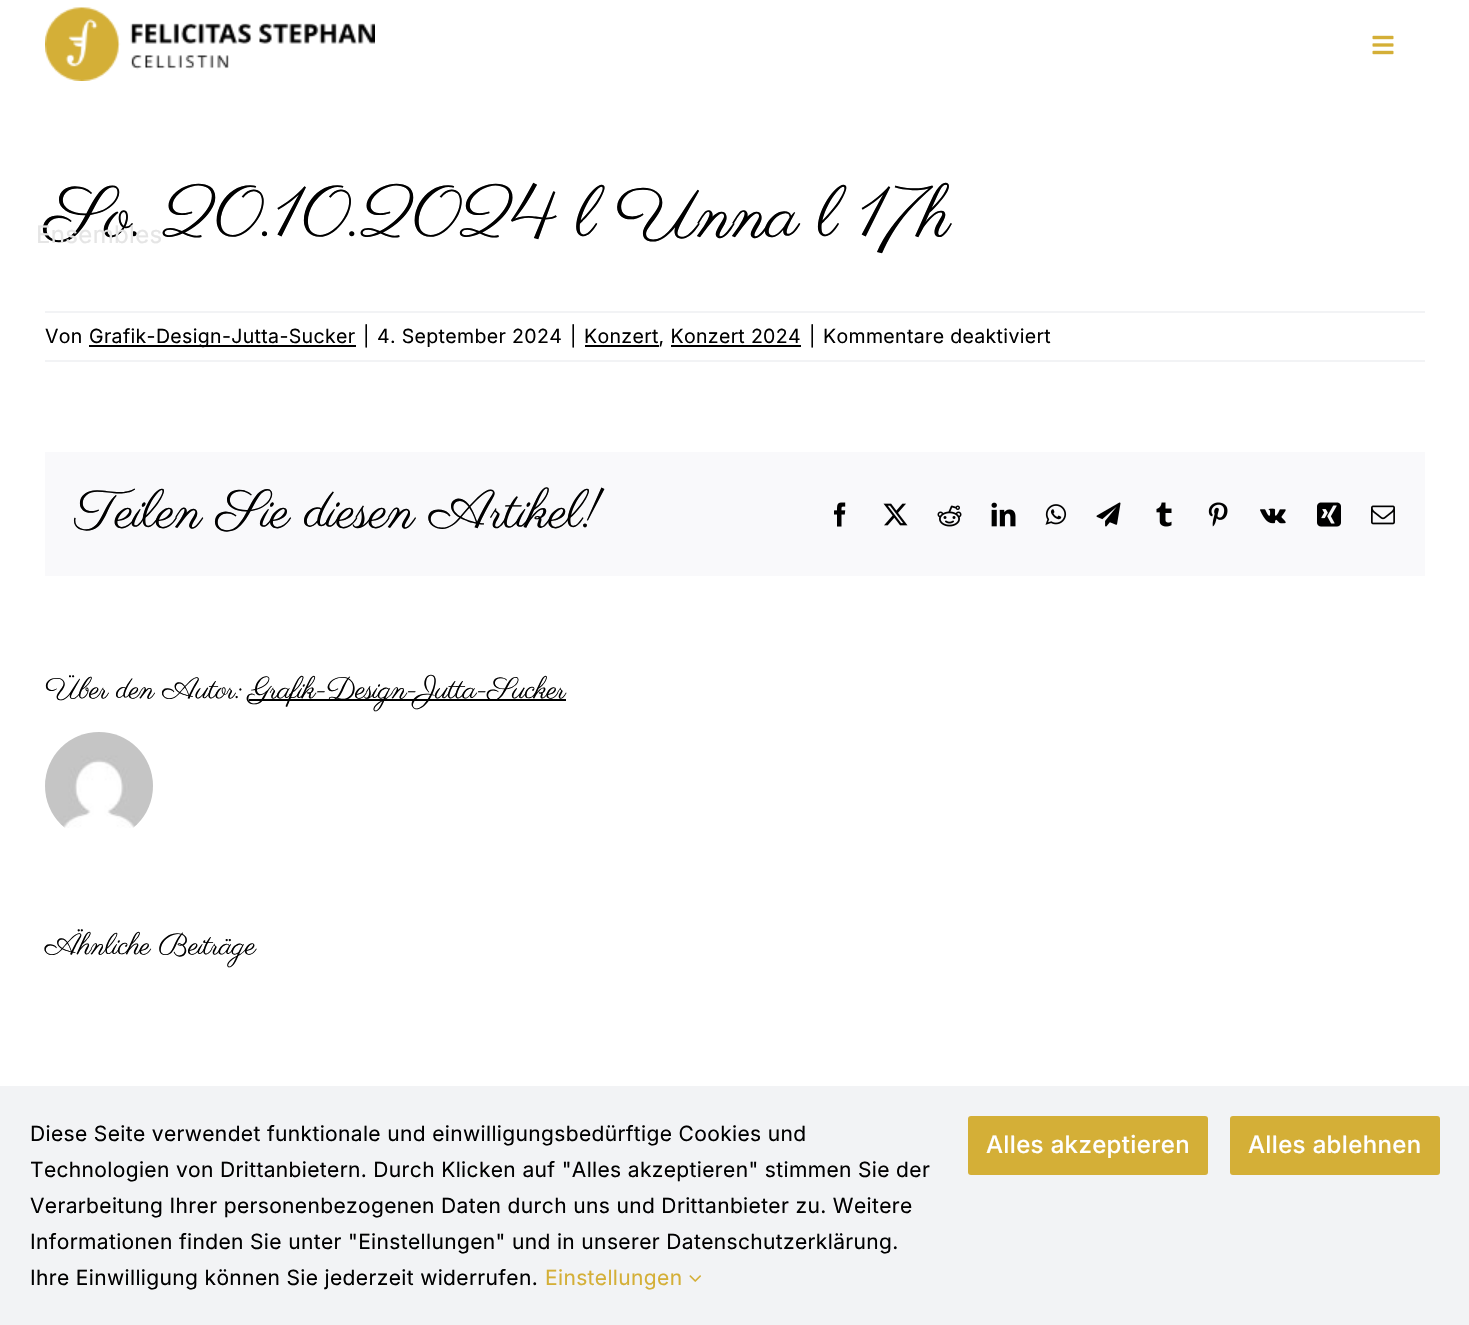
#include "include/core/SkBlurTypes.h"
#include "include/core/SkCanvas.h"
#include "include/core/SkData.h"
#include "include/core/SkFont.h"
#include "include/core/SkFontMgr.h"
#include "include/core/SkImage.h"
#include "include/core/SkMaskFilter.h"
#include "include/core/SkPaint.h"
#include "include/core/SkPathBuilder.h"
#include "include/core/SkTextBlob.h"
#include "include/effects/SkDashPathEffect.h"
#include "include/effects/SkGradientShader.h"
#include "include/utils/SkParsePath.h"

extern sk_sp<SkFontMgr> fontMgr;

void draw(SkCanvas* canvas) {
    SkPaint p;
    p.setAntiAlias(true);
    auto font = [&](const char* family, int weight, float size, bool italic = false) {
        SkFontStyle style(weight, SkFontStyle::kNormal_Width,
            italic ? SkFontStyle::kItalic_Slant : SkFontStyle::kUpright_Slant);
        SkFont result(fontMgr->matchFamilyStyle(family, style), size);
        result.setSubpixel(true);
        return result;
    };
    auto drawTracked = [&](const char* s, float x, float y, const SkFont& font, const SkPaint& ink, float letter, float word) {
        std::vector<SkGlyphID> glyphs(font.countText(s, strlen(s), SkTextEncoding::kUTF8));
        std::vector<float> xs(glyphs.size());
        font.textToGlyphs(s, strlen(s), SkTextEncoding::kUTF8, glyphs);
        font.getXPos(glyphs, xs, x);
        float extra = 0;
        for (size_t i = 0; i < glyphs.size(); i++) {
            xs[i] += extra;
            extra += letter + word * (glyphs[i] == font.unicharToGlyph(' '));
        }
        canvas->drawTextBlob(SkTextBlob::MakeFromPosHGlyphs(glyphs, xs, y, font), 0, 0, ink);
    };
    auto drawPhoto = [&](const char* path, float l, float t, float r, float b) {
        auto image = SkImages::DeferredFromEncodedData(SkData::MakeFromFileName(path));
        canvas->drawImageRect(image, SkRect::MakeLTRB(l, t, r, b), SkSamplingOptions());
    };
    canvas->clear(0xFFFFFFFF);
    auto font1 = font("Parisienne", 400, 72);
    p.setColor(0xFF000000);
    drawTracked("So. 20.10.2024 l Unna l 17h", 45, 236, font1, p, -1.1f, 0);
    p.setColor(0xFFF2F3F5);
    canvas->drawRect(SkRect::MakeLTRB(45, 311, 1425, 313), p);
    canvas->drawRect(SkRect::MakeLTRB(45, 360, 1425, 362), p);
    auto font2 = font("Inter", 400, 19.5f);
    p.setColor(0xFF000000);
    drawTracked("Von", 45, 343, font2, p, 0.35f, 0);
    canvas->drawRect(SkRect::MakeLTRB(89, 345, 356, 347), p);
    {
        const struct { const char* s; float x, y; } items[] = {
            {"Grafik-Design-Jutta-Sucker", 89, 343},
            {"|", 363, 343},
            {"4. September 2024", 377, 343},
            {"|", 570, 343},
        };
        for (auto [s, x, y] : items) {
            drawTracked(s, x, y, font2, p, 0.35f, 0);
        }
    }
    canvas->drawRect(SkRect::MakeLTRB(585, 345, 659, 347), p);
    {
        const struct { const char* s; float x, y; } items[] = {
            {"Konzert, Konzert 2024", 584, 343},
            {"|", 809, 343},
            {"Kommentare deaktiviert", 823, 343},
        };
        for (auto [s, x, y] : items) {
            drawTracked(s, x, y, font2, p, 0.35f, 0);
        }
    }
    canvas->drawRect(SkRect::MakeLTRB(671, 345, 801, 347), p);
    p.setColor(0xFFF9F9FB);
    canvas->drawRect(SkRect::MakeLTRB(45, 452, 1425, 576), p);
    auto font3 = font("Parisienne", 400, 54);
    p.setColor(0xFF000000);
    drawTracked("Teilen Sie diesen Artikel!", 75, 527, font3, p, -0.8f, 0);
    drawPhoto("media/1.png", 834, 502, 846, 527);
    drawPhoto("media/2.png", 883, 503, 908, 526);
    drawPhoto("media/3.png", 937, 505, 962, 527);
    drawPhoto("media/4.png", 991, 502, 1016, 527);
    drawPhoto("media/5.png", 1045, 504, 1067, 525);
    drawPhoto("media/6.png", 1096, 502, 1121, 527);
    drawPhoto("media/7.png", 1156, 502, 1172, 527);
    drawPhoto("media/8.png", 1208, 502, 1228, 527);
    drawPhoto("media/9.png", 1260, 508, 1286, 524);
    drawPhoto("media/10.png", 1317, 502, 1341, 527);
    drawPhoto("media/11.png", 1371, 505, 1395, 525);
    auto font4 = font("Parisienne", 400, 30);
    drawTracked("Über den Autor:", 45, 698, font4, p, -0.45f, 0);
    canvas->drawRect(SkRect::MakeLTRB(249, 699, 566, 701), p);
    drawTracked("Grafik-Design-Jutta-Sucker", 249, 698, font4, p, -0.45f, 0);
    drawPhoto("media/12.png", 45, 732, 153, 828);
    drawTracked("Ähnliche Beiträge", 45, 954, font4, p, -0.45f, 0);
    drawPhoto("media/13.png", 45, 7, 375, 81);
    drawPhoto("media/14.png", 1372, 35, 1394, 55);
    auto font5 = font("Inter", 400, 24);
    p.setColor(0xFFE5E5E5);
    drawTracked("Ensembles", 36, 243, font5, p, 0.35f, 0);
    p.setColor(0xFFF2F3F5);
    canvas->drawRect(SkRect::MakeLTRB(0, 1086, 1469, 1325), p);
    auto font6 = font("Inter", 400, 21);
    p.setColor(0xFF000000);
    {
        const struct { const char* s; float x, y; } items[] = {
            {"Diese Seite verwendet funktionale und einwilligungsbedürftige Cookies und", 30, 1141},
            {"Technologien von Drittanbietern. Durch Klicken auf \"Alles akzeptieren\" stimmen Sie der", 30, 1177},
            {"Verarbeitung Ihrer personenbezogenen Daten durch uns und Drittanbieter zu. Weitere", 30, 1213},
            {"Informationen finden Sie unter \"Einstellungen\" und in unserer Datenschutzerklärung.", 30, 1249},
            {"Ihre Einwilligung können Sie jederzeit widerrufen.", 30, 1285},
        };
        for (auto [s, x, y] : items) {
            drawTracked(s, x, y, font6, p, 0.35f, 0);
        }
    }
    p.setColor(0xFFD4AF37);
    drawTracked("Einstellungen", 545, 1285, font6, p, 0.35f, 0);
    drawPhoto("media/15.png", 689, 1275, 701, 1282);
    canvas->drawRoundRect(SkRect::MakeLTRB(968, 1116, 1208, 1175), 3, 3, p);
    auto font7 = font("Inter", 500, 24);
    p.setColor(0xFFFFFFFF);
    drawTracked("Alles akzeptieren", 986, 1153, font7, p, 0.35f, 0);
    p.setColor(0xFFD4AF37);
    canvas->drawRoundRect(SkRect::MakeLTRB(1230, 1116, 1440, 1175), 3, 3, p);
    p.setColor(0xFFFFFFFF);
    drawTracked("Alles ablehnen", 1248, 1153, font7, p, 0.35f, 0);
}
